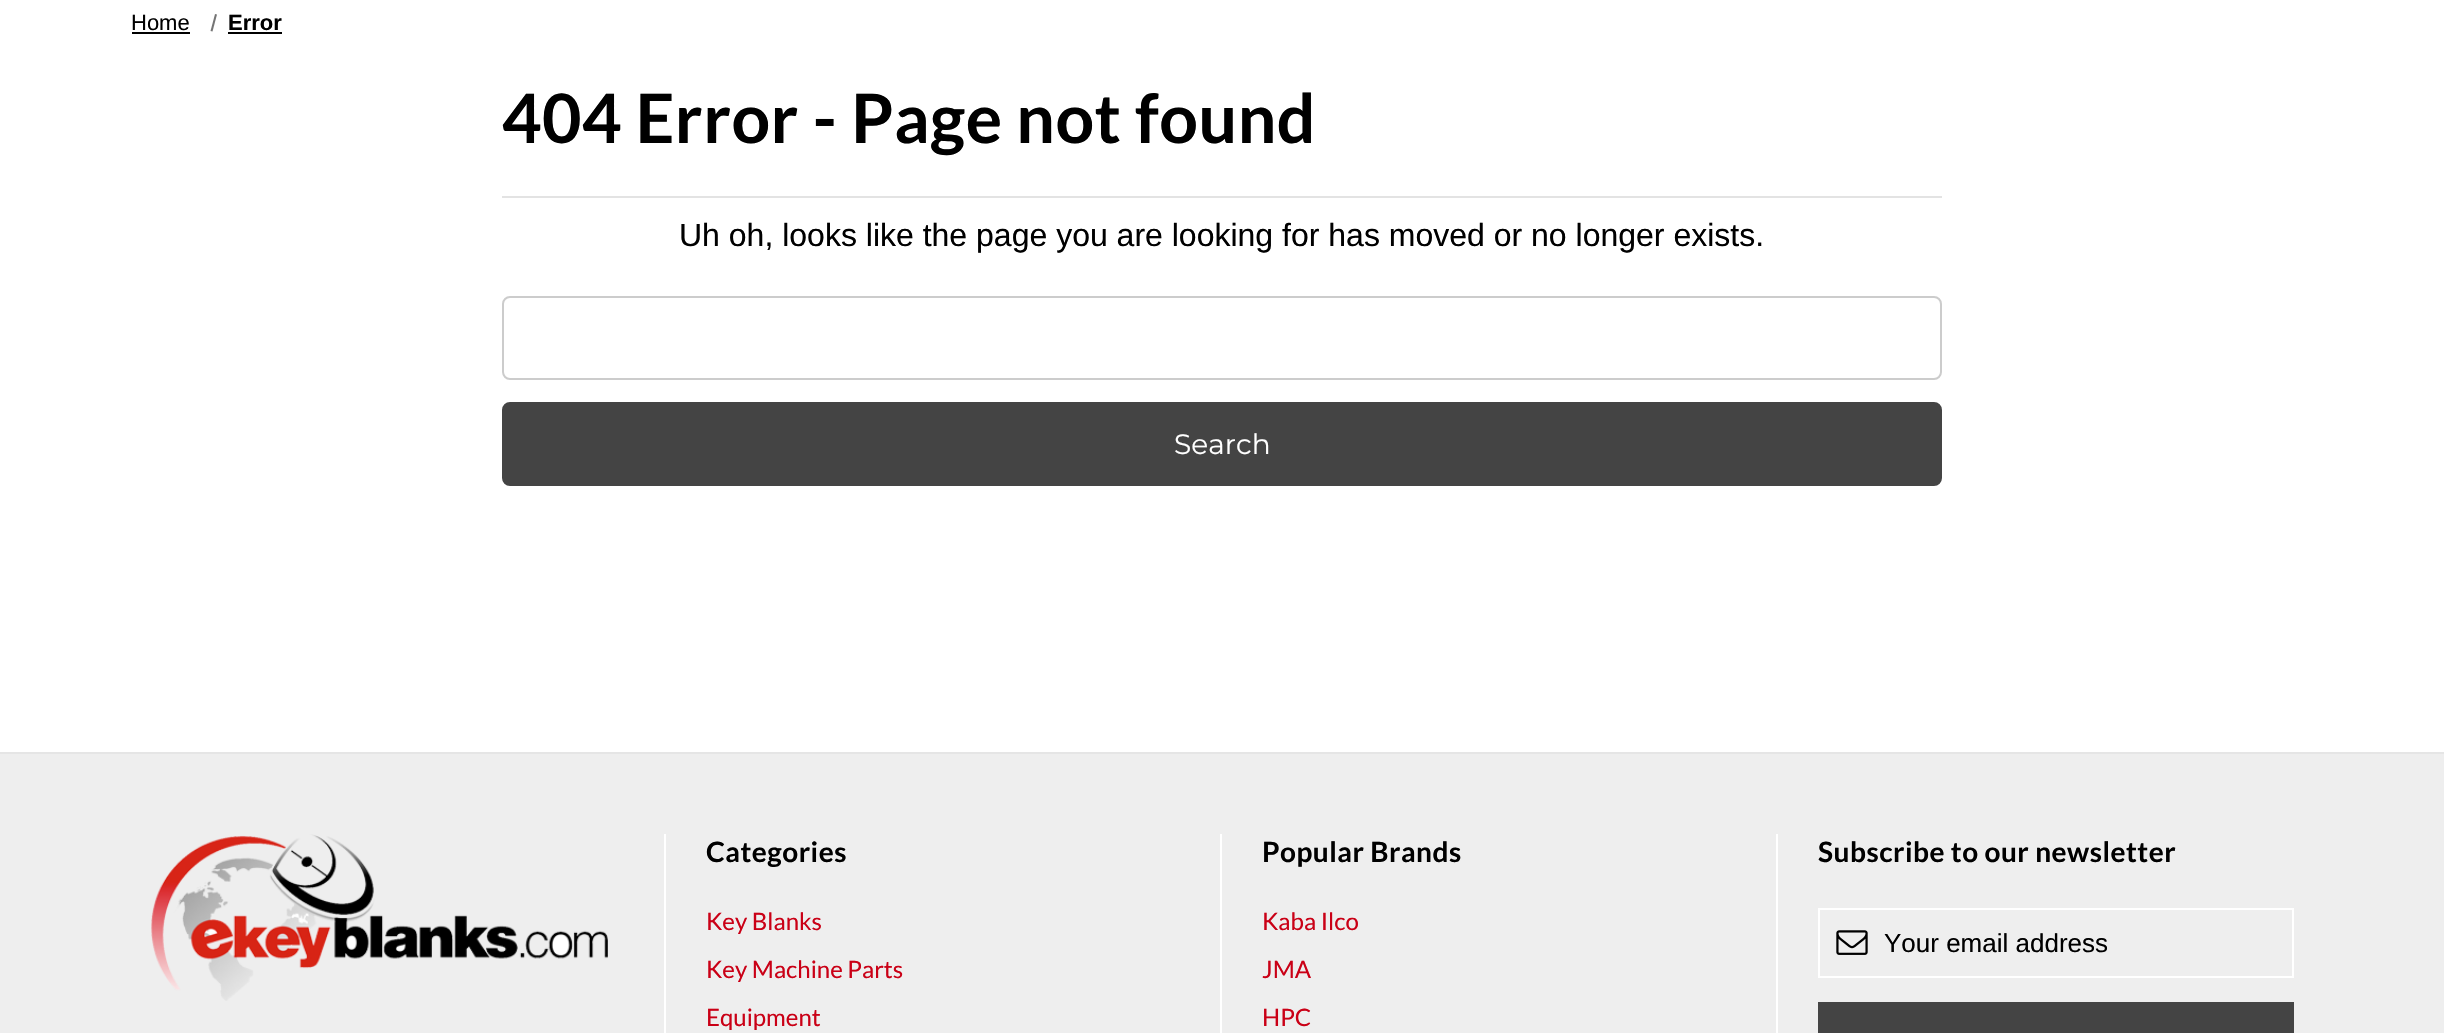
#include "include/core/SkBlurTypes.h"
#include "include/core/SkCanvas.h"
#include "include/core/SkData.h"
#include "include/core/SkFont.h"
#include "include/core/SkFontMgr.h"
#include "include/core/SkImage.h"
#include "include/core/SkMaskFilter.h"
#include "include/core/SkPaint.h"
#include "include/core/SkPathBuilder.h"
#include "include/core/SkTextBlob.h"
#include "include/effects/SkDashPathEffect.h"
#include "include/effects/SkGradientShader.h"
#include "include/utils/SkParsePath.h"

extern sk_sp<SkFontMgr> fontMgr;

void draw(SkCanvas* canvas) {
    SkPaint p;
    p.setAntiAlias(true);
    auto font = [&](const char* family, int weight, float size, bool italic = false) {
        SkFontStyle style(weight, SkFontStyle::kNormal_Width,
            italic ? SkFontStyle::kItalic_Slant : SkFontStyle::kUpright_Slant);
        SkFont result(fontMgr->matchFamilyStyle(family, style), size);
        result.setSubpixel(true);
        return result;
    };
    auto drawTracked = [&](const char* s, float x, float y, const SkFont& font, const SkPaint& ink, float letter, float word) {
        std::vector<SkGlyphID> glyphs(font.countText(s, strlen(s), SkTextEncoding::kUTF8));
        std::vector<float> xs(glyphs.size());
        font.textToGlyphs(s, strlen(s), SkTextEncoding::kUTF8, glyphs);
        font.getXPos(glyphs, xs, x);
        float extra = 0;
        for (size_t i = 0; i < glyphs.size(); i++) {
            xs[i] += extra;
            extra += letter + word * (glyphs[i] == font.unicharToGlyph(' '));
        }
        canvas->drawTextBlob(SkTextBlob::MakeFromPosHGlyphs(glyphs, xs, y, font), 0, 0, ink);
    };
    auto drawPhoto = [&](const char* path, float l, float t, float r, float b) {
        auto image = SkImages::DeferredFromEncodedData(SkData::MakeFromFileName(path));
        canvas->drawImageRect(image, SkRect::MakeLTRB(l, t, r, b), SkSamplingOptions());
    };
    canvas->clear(0xFFFFFFFF);
    auto font1 = font("Liberation Sans", 400, 22);
    p.setColor(0xFF000000);
    canvas->drawString("Home", 131, 30, font1, p);
    canvas->drawRect(SkRect::MakeLTRB(132, 32, 190, 34), p);
    p.setColor(0xFF757575);
    canvas->drawPath(SkPathBuilder().moveTo(215, 14).lineTo(217, 14.5f).lineTo(212.5f, 31.5f).lineTo(210.5f, 31).close().detach(), p);
    auto font2 = font("Liberation Sans", 700, 22);
    p.setColor(0xFF000000);
    canvas->drawString("Error", 228, 30, font2, p);
    canvas->drawRect(SkRect::MakeLTRB(228, 32, 282, 34), p);
    p.setColor(0xFFE3E3E3);
    canvas->drawRect(SkRect::MakeLTRB(502, 196, 1942, 198), p);
    auto font3 = font("Lato", 700, 68);
    p.setColor(0xFF000000);
    drawTracked("404 Error - Page not found", 502, 143, font3, p, 0.5f, 0);
    auto font4 = font("Liberation Sans", 400, 32);
    canvas->drawString("Uh oh, looks like the page you are looking for has moved or no longer exists.", 679, 246, font4, p);
    p.setStyle(SkPaint::kStroke_Style);
    p.setStrokeWidth(2);
    p.setColor(0xFFCCCCCC);
    canvas->drawRoundRect(SkRect::MakeLTRB(503, 297, 1941, 379), 7, 7, p);
    p.setStyle(SkPaint::kFill_Style);
    p.setColor(0xFF444444);
    canvas->drawRoundRect(SkRect::MakeLTRB(503, 403, 1941, 485), 7, 7, p);
    p.setStyle(SkPaint::kStroke_Style);
    canvas->drawRoundRect(SkRect::MakeLTRB(503, 403, 1941, 485), 7, 7, p);
    auto font5 = font("Montserrat", 100, 28);
    p.setStyle(SkPaint::kFill_Style);
    p.setColor(0xFFFFFFFF);
    canvas->drawString("Search", 1174, 454, font5, p);
    {
        const struct { float l, t, r, b; SkColor color; } items[] = {
            {0, 754, 2444, 1033, 0xFFEEEEEE},
            {0, 752, 2444, 754, 0xFFE5E5E5},
            {664, 834, 666, 1033, 0xFFFFFFFF},
        };
        for (auto [l, t, r, b, color] : items) {
            p.setColor(color);
            canvas->drawRect(SkRect::MakeLTRB(l, t, r, b), p);
        }
    }
    drawPhoto("media/1.png", 151, 834, 608, 1001);
    canvas->drawRect(SkRect::MakeLTRB(1220, 834, 1222, 1033), p);
    auto font6 = font("Lato", 700, 28);
    p.setColor(0xFF000000);
    drawTracked("Categories", 706, 862, font6, p, 0.5f, 0);
    auto font7 = font("Lato", 400, 24);
    p.setColor(0xFFCA0016);
    {
        const struct { const char* s; float x, y; } items[] = {
            {"Key Blanks", 706, 930},
            {"Key Machine Parts", 706, 978},
            {"Equipment", 706, 1026},
        };
        for (auto [s, x, y] : items) {
            canvas->drawString(s, x, y, font7, p);
        }
    }
    p.setColor(0xFFFFFFFF);
    canvas->drawRect(SkRect::MakeLTRB(1776, 834, 1778, 1033), p);
    p.setColor(0xFF000000);
    drawTracked("Popular Brands", 1262, 862, font6, p, 0.5f, 0);
    p.setColor(0xFFCA0016);
    {
        const struct { const char* s; float x, y; } items[] = {
            {"Kaba Ilco", 1262, 930},
            {"JMA", 1262, 978},
            {"HPC", 1262, 1026},
        };
        for (auto [s, x, y] : items) {
            canvas->drawString(s, x, y, font7, p);
        }
    }
    p.setColor(0xFF000000);
    drawTracked("Subscribe to our newsletter", 1818, 862, font6, p, 0.5f, 0);
    drawPhoto("media/2.png", 1836, 930, 1868, 955);
    p.setStyle(SkPaint::kStroke_Style);
    p.setColor(0xFFFFFFFF);
    canvas->drawRect(SkRect::MakeLTRB(1819, 909, 2293, 977), p);
    auto font8 = font("Liberation Sans", 400, 26);
    p.setStyle(SkPaint::kFill_Style);
    p.setColor(0xFF000000);
    canvas->drawString("Your email address", 1884, 952, font8, p);
    p.setColor(0xFF444444);
    canvas->drawRect(SkRect::MakeLTRB(1818, 1002, 2294, 1033), p);
}
